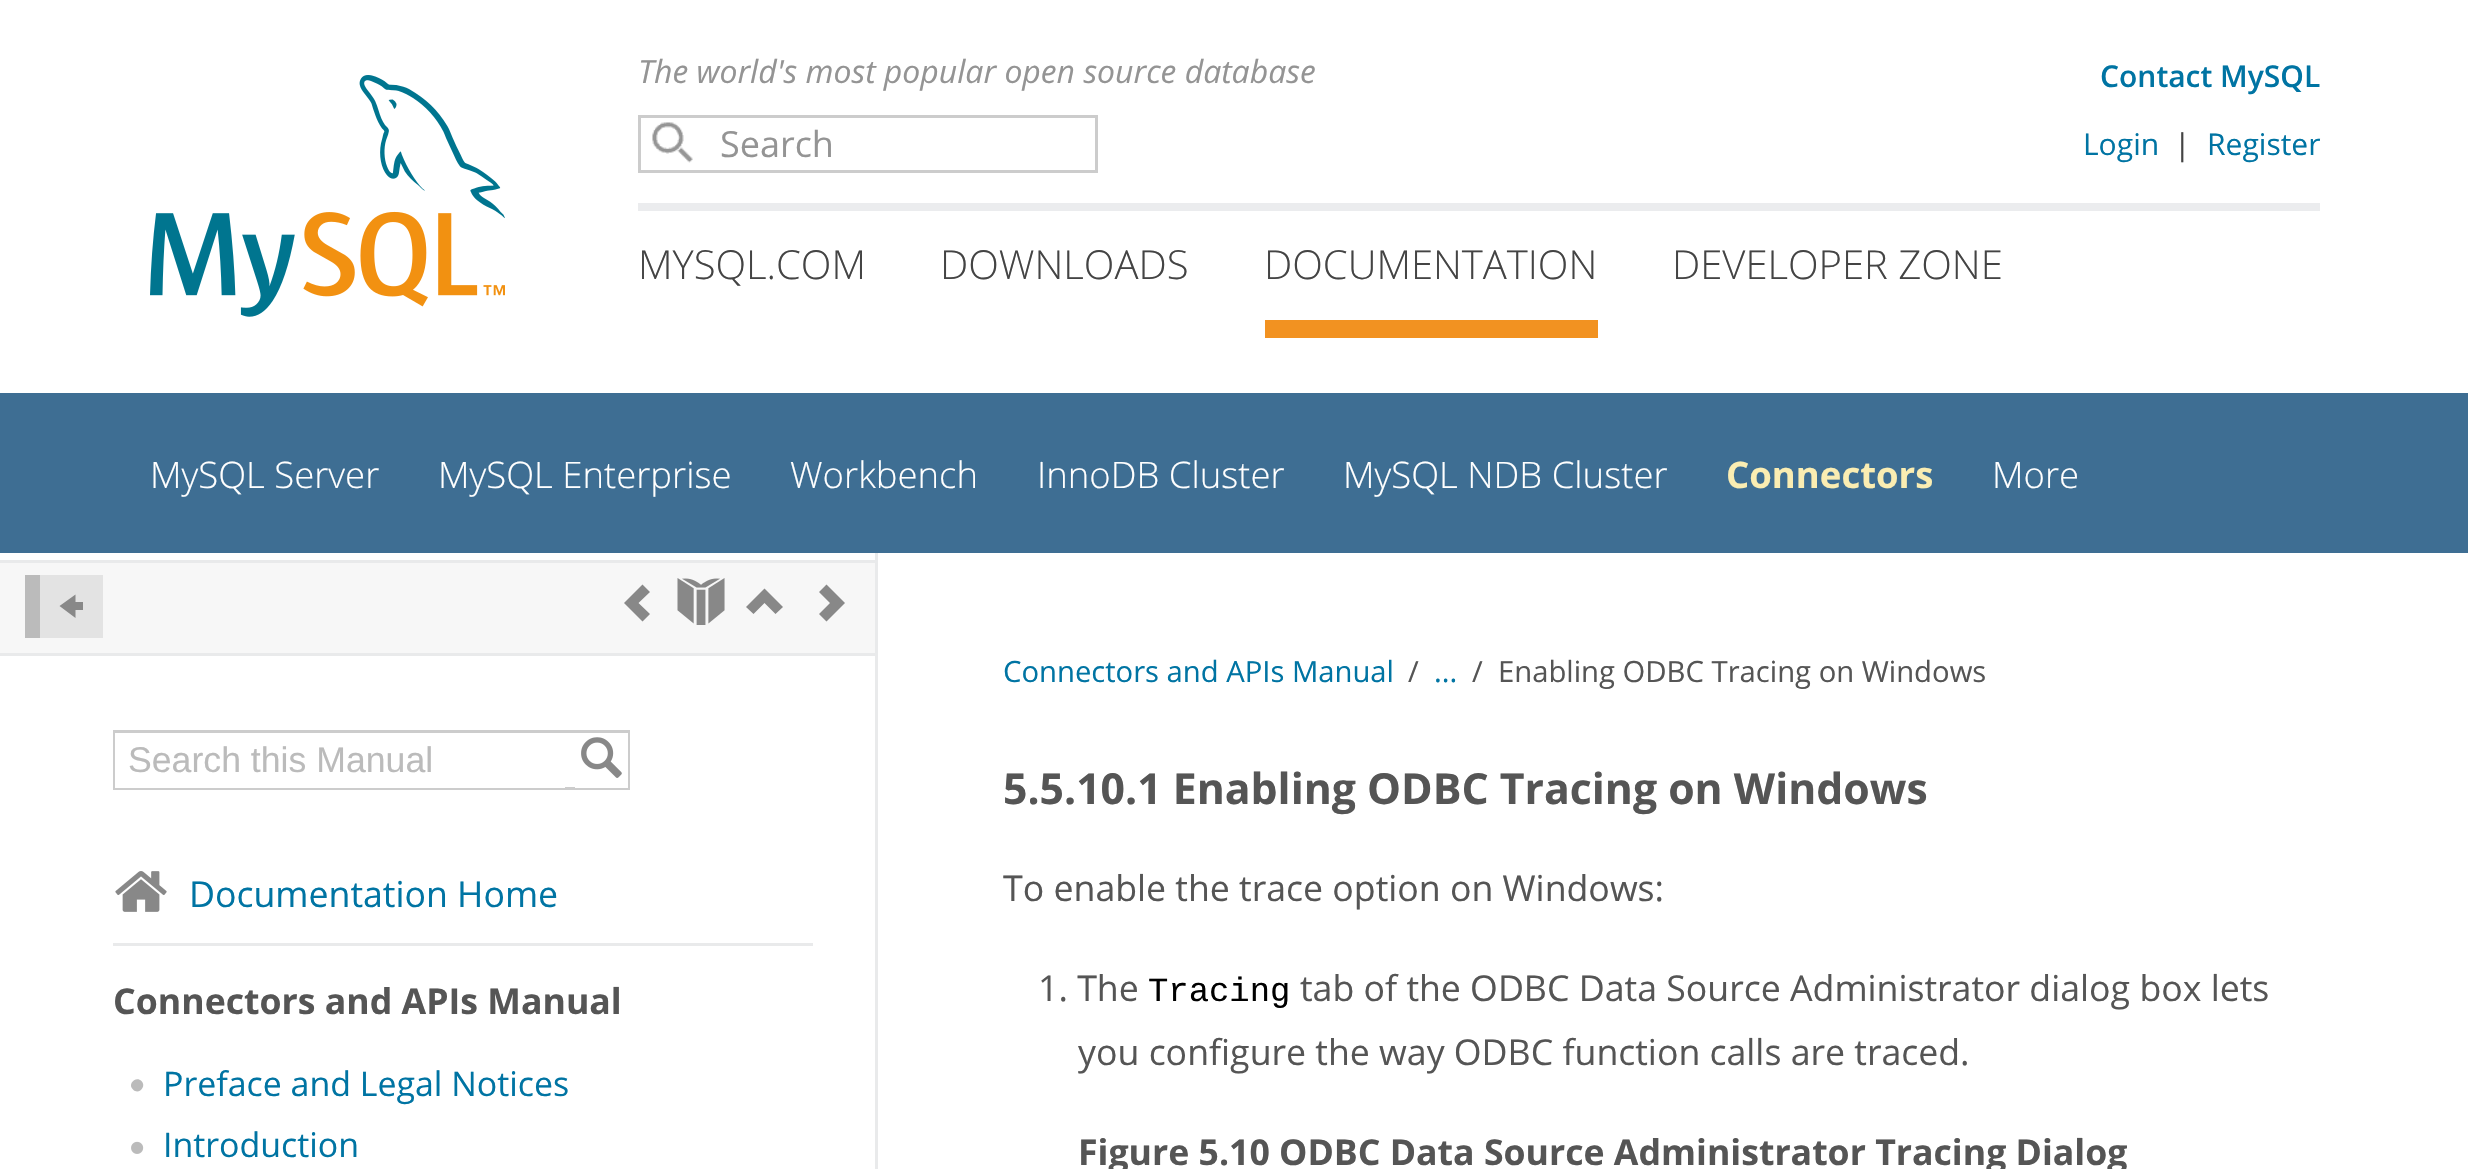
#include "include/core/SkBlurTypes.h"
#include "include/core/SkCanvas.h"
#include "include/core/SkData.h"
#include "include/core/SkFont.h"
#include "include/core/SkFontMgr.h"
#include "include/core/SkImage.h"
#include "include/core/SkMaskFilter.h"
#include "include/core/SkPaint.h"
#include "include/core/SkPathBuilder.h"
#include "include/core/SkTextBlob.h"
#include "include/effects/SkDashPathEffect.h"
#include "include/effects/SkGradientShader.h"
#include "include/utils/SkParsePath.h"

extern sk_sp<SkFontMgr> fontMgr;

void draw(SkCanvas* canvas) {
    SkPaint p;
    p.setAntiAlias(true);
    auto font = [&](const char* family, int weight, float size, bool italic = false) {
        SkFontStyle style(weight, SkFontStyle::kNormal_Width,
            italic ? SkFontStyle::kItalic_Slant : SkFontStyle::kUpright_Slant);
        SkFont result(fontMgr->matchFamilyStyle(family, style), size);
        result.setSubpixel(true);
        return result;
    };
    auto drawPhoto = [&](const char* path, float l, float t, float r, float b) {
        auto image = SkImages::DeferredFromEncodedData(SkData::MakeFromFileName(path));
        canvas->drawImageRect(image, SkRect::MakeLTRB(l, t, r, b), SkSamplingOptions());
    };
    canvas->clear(0xFFFFFFFF);
    drawPhoto("media/1.png", 150, 75, 505, 317);
    p.setColor(0xFFEBECEE);
    canvas->drawRect(SkRect::MakeLTRB(638, 203, 2320, 211), p);
    auto font1 = font("Open Sans", 400, 32, true);
    p.setColor(0xFF949494);
    canvas->drawString("The world's most popular open source database", 638, 83, font1, p);
    auto font2 = font("Open Sans", 600, 30);
    p.setColor(0xFF0074A3);
    canvas->drawString("Contact MySQL", 2100, 87, font2, p);
    auto font3 = font("Open Sans", 400, 30);
    canvas->drawString("Login", 2083, 155, font3, p);
    p.setColor(0xFF444444);
    canvas->drawString("|", 2174, 155, font3, p);
    p.setColor(0xFF0074A3);
    canvas->drawString("Register", 2207, 155, font3, p);
    drawPhoto("media/2.png", 652, 122, 693, 163);
    p.setStyle(SkPaint::kStroke_Style);
    p.setStrokeWidth(3);
    p.setColor(0xFFCCCCCC);
    canvas->drawRect(SkRect::MakeLTRB(639.5f, 116.5f, 1096.5f, 171.5f), p);
    auto font4 = font("Open Sans", 400, 36);
    p.setStyle(SkPaint::kFill_Style);
    p.setColor(0xFF949494);
    canvas->drawString("Search", 720, 157, font4, p);
    auto font5 = font("Open Sans", 300, 40);
    p.setColor(0xFF444444);
    canvas->drawString("MYSQL.COM", 638, 279, font5, p);
    canvas->drawString("DOWNLOADS", 940, 279, font5, p);
    p.setColor(0xFFF29221);
    canvas->drawRect(SkRect::MakeLTRB(1265, 320, 1598, 338), p);
    p.setColor(0xFF444444);
    canvas->drawString("DOCUMENTATION", 1264, 279, font5, p);
    canvas->drawString("DEVELOPER ZONE", 1672, 279, font5, p);
    p.setColor(0xFF3E6E93);
    canvas->drawRect(SkRect::MakeLTRB(0, 393, 2468, 553), p);
    auto font6 = font("Open Sans", 300, 36.5f);
    p.setColor(0xFFFFFFFF);
    {
        const struct { const char* s; float x, y; } items[] = {
            {"MySQL Server", 150, 488},
            {"MySQL Enterprise", 438, 488},
            {"Workbench", 790, 488},
            {"InnoDB Cluster", 1037, 488},
            {"MySQL NDB Cluster", 1343, 488},
        };
        for (auto [s, x, y] : items) {
            canvas->drawString(s, x, y, font6, p);
        }
    }
    auto font7 = font("Open Sans", 700, 36.5f);
    p.setColor(0xFFFAEDB2);
    canvas->drawString("Connectors", 1726, 488, font7, p);
    p.setColor(0xFFFFFFFF);
    canvas->drawString("More", 1992, 488, font6, p);
    {
        const struct { float l, t, r, b; SkColor color; } items[] = {
            {875, 553, 878, 1169, 0xFFE9EAEB},
            {0, 563, 875, 653, 0xFFF7F7F7},
            {0, 560, 875, 563, 0xFFE9EAEB},
            {0, 653, 875, 656, 0xFFE9EAEB},
            {40, 575, 103, 638, 0xFFE3E3E3},
            {25, 575, 40, 638, 0xFFBBBBBB},
        };
        for (auto [l, t, r, b, color] : items) {
            p.setColor(color);
            canvas->drawRect(SkRect::MakeLTRB(l, t, r, b), p);
        }
    }
    p.setColor(0xFF888888);
    canvas->drawPath(SkPathBuilder().moveTo(75.5f, 602).lineTo(75.5f, 594.5f).lineTo(59.5f, 606).lineTo(75.5f, 618).lineTo(75.5f, 610).lineTo(83, 610).lineTo(83, 602).close().detach(), p);
    canvas->drawPath(SkPathBuilder().moveTo(650, 592).lineTo(642.5f, 584.5f).lineTo(624, 603).lineTo(642.5f, 621.5f).lineTo(650, 614).lineTo(638.5f, 603).close().detach(), p);
    drawPhoto("media/3.png", 677, 578, 725, 625);
    canvas->drawPath(SkPathBuilder().moveTo(764.5f, 588.5f).lineTo(746, 607).lineTo(753.5f, 614).lineTo(764.5f, 603).lineTo(775.5f, 614).lineTo(783, 607).close().detach(), p);
    canvas->drawPath(SkPathBuilder().moveTo(826.5f, 584.5f).lineTo(819, 592).lineTo(830, 603).lineTo(819, 614).lineTo(826.5f, 621.5f).lineTo(845, 603).close().detach(), p);
    p.setStyle(SkPaint::kStroke_Style);
    p.setColor(0xFFCCCCCC);
    canvas->drawRect(SkRect::MakeLTRB(114.5f, 731.5f, 628.5f, 788.5f), p);
    p.setStyle(SkPaint::kFill_Style);
    p.setColor(0xFFFFFFFF);
    canvas->drawRect(SkRect::MakeLTRB(115, 733, 565, 788), p);
    auto font8 = font("Liberation Sans", 400, 35.65f);
    p.setColor(0xFFBBBBBB);
    canvas->drawString("Search this Manual", 128, 772, font8, p);
    p.setColor(0xFFFFFFFF);
    canvas->drawRect(SkRect::MakeLTRB(575, 733, 628, 788), p);
    drawPhoto("media/4.png", 581, 737, 622, 778);
    drawPhoto("media/5.png", 115, 871, 167, 912);
    auto font9 = font("Open Sans", 400, 35.65f);
    p.setColor(0xFF0074A3);
    canvas->drawString("Documentation Home", 189, 907, font9, p);
    p.setColor(0xFFE9EAEB);
    canvas->drawRect(SkRect::MakeLTRB(113, 943, 813, 946), p);
    auto font10 = font("Open Sans", 700, 35.65f);
    p.setColor(0xFF555555);
    canvas->drawString("Connectors and APIs Manual", 113, 1014, font10, p);
    p.setColor(0xFFBBBBBB);
    canvas->drawPath(SkPathBuilder().moveTo(133, 1089.5f).cubicTo(127, 1084, 136, 1075.5f, 141.5f, 1081).cubicTo(147, 1086.5f, 138.5f, 1095.5f, 133, 1089.5f).close().detach(), p);
    auto font11 = font("Open Sans", 400, 33.9f);
    p.setColor(0xFF0074A3);
    canvas->drawString("Preface and Legal Notices", 163, 1096, font11, p);
    drawPhoto("media/6.png", 131, 1141, 144, 1154);
    canvas->drawString("Introduction", 163, 1157, font11, p);
    auto font12 = font("Open Sans", 400, 29.2f);
    canvas->drawString("Connectors and APIs Manual", 1003, 682, font12, p);
    p.setColor(0xFF555555);
    canvas->drawString("/", 1408, 682, font12, p);
    p.setColor(0xFF0074A3);
    canvas->drawString("...", 1434, 682, font12, p);
    p.setColor(0xFF555555);
    canvas->drawString("/", 1472, 682, font12, p);
    canvas->drawString("Enabling ODBC Tracing on Windows", 1498, 682, font12, p);
    auto font13 = font("Open Sans", 700, 42.75f);
    canvas->drawString("5.5.10.1 Enabling ODBC Tracing on Windows", 1003, 804, font13, p);
    canvas->drawString("To enable the trace option on Windows:", 1003, 901, font9, p);
    canvas->drawString("1. The", 1038, 1001, font9, p);
    auto font14 = font("Liberation Mono", 400, 33.9f);
    p.setColor(0xFF000000);
    canvas->drawString("Tracing", 1148, 1001, font14, p);
    p.setColor(0xFF555555);
    canvas->drawString("tab of the ODBC Data Source Administrator dialog box lets", 1300, 1001, font9, p);
    canvas->drawString("you configure the way ODBC function calls are traced.", 1078, 1065, font9, p);
    canvas->drawString("Figure 5.10 ODBC Data Source Administrator Tracing Dialog", 1078, 1165, font10, p);
}
